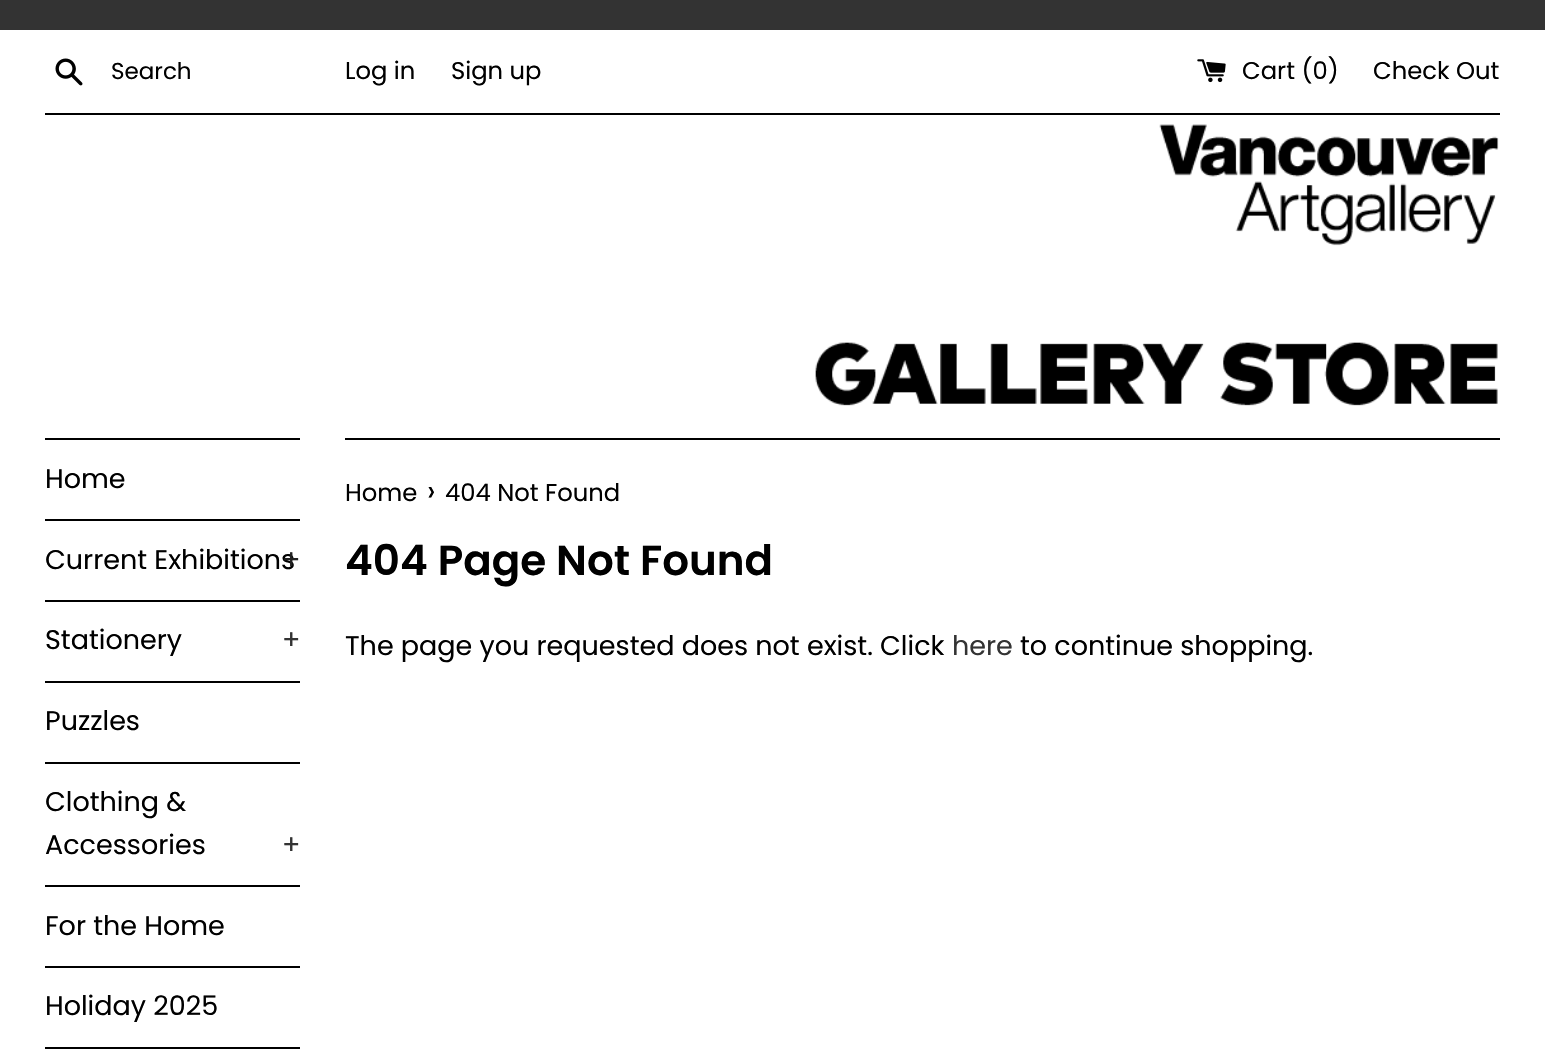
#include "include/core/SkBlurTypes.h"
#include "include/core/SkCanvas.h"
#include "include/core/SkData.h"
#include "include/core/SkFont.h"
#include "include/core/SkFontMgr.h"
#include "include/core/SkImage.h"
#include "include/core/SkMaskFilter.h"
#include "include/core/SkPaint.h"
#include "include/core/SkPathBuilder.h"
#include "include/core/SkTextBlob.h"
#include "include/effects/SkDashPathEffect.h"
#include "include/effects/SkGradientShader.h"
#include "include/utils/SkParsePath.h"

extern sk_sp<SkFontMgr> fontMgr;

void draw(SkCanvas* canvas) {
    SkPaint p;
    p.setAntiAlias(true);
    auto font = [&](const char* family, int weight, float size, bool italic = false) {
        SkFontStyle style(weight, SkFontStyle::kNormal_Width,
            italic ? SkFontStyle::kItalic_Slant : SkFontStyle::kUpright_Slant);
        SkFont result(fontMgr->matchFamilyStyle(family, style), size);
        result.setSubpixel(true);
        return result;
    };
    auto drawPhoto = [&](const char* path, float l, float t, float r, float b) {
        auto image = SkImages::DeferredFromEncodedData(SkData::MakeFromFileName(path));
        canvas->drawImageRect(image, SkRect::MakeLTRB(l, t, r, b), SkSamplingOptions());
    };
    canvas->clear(0xFFFFFFFF);
    p.setColor(0xFF333333);
    canvas->drawRect(SkRect::MakeLTRB(0, 0, 1545, 30), p);
    drawPhoto("media/1.png", 55, 58, 83, 86);
    auto font1 = font("Poppins", 400, 23);
    p.setColor(0xFF000000);
    canvas->drawString("Search", 111, 79, font1, p);
    auto font2 = font("Poppins", 400, 24.25f);
    canvas->drawString("Log in", 345, 79, font2, p);
    canvas->drawString("Sign up", 451, 79, font2, p);
    drawPhoto("media/2.png", 1197, 59, 1226, 83);
    canvas->drawString("Cart (0)", 1242, 79, font2, p);
    canvas->drawString("Check Out", 1373, 79, font2, p);
    canvas->drawRect(SkRect::MakeLTRB(45, 113, 1500, 115), p);
    drawPhoto("media/3.png", 815, 124, 1499, 406);
    canvas->drawRect(SkRect::MakeLTRB(45, 438, 300, 440), p);
    canvas->drawRect(SkRect::MakeLTRB(45, 519, 300, 521), p);
    auto font3 = font("Poppins", 400, 27);
    canvas->drawString("Home", 45, 488, font3, p);
    canvas->drawRect(SkRect::MakeLTRB(45, 600, 300, 602), p);
    canvas->drawString("Current Exhibitions", 45, 569, font3, p);
    p.setColor(0xFF212121);
    canvas->drawString("+", 282, 569, font3, p);
    p.setColor(0xFF000000);
    canvas->drawRect(SkRect::MakeLTRB(45, 681, 300, 683), p);
    canvas->drawString("Stationery", 45, 649, font3, p);
    p.setColor(0xFF333333);
    canvas->drawString("+", 282, 649, font3, p);
    p.setColor(0xFF000000);
    canvas->drawRect(SkRect::MakeLTRB(45, 762, 300, 764), p);
    canvas->drawString("Puzzles", 45, 730, font3, p);
    canvas->drawRect(SkRect::MakeLTRB(45, 885, 300, 887), p);
    canvas->drawString("Clothing &", 45, 811, font3, p);
    canvas->drawString("Accessories", 45, 854, font3, p);
    p.setColor(0xFF333333);
    canvas->drawString("+", 282, 854, font3, p);
    p.setColor(0xFF000000);
    canvas->drawRect(SkRect::MakeLTRB(45, 966, 300, 968), p);
    canvas->drawString("For the Home", 45, 935, font3, p);
    canvas->drawRect(SkRect::MakeLTRB(45, 1047, 300, 1049), p);
    canvas->drawString("Holiday 2025", 45, 1015, font3, p);
    canvas->drawRect(SkRect::MakeLTRB(345, 438, 1500, 440), p);
    canvas->drawString("Home", 345, 501, font2, p);
    auto font4 = font("Poppins", 400, 30);
    canvas->drawString("›", 427, 501, font4, p);
    canvas->drawString("404 Not Found", 445, 501, font2, p);
    auto font5 = font("Poppins", 600, 42);
    canvas->drawString("404 Page Not Found", 345, 575, font5, p);
    canvas->drawString("The page you requested does not exist. Click", 345, 655, font3, p);
    p.setColor(0xFF333333);
    canvas->drawString("here", 952, 655, font3, p);
    p.setColor(0xFF000000);
    canvas->drawString("to continue shopping.", 1020, 655, font3, p);
}
